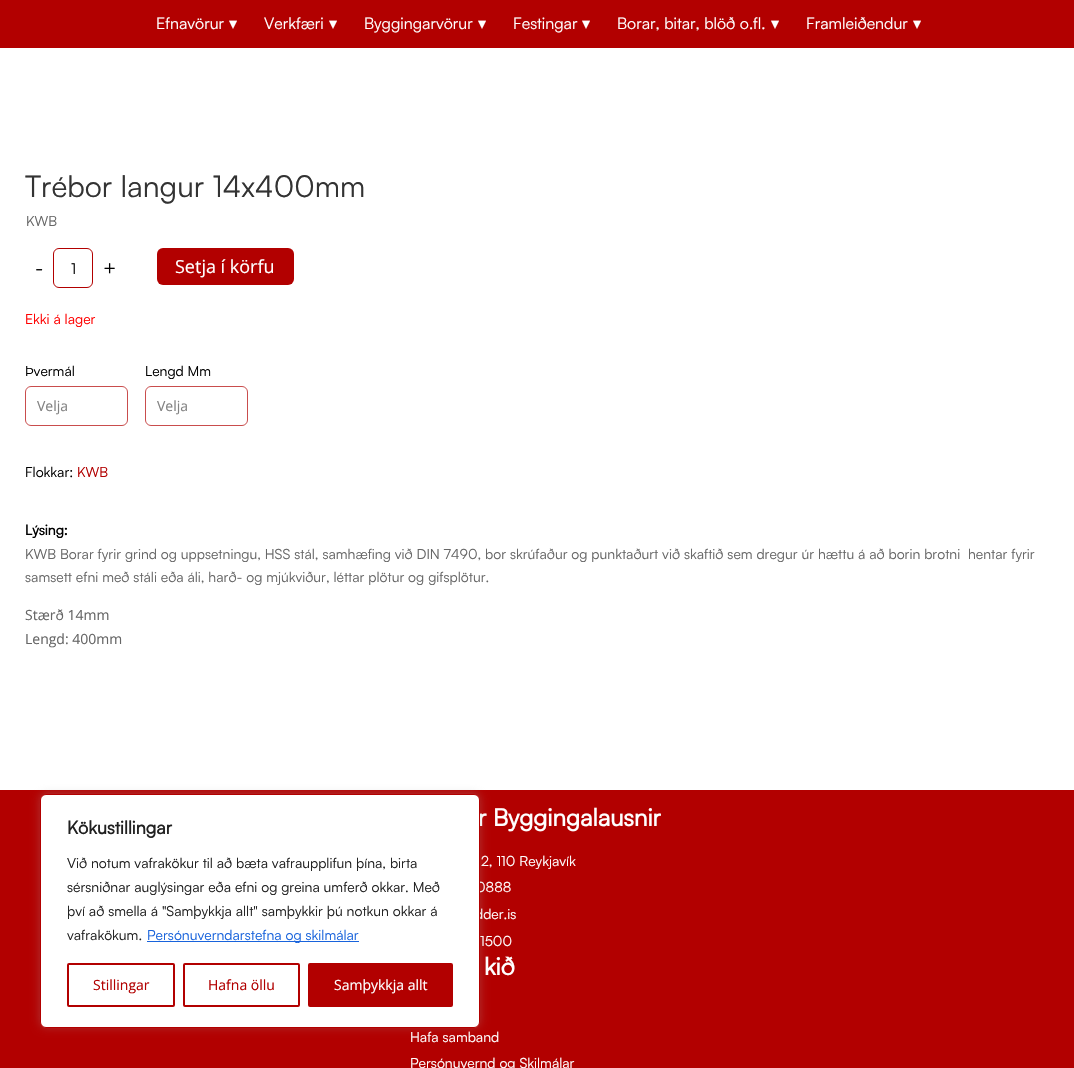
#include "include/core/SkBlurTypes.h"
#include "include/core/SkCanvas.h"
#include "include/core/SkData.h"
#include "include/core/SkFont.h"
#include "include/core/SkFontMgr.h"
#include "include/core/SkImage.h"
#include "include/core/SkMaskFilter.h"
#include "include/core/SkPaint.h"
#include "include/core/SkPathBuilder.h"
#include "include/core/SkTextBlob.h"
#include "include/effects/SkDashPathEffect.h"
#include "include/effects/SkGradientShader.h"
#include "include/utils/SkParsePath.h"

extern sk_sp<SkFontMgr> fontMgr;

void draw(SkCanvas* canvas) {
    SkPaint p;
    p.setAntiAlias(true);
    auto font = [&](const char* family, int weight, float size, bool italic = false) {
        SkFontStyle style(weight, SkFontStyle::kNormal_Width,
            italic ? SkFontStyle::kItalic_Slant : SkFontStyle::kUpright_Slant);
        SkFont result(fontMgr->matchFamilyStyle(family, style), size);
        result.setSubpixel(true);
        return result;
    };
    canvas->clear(0xFFFFFFFF);
    p.setColor(0xFFB20000);
    canvas->drawRect(SkRect::MakeLTRB(0, 0, 1074, 48), p);
    auto font1 = font("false", 400, 16);
    p.setColor(0xFFFFFFFF);
    canvas->drawString("Efnavörur", 156, 29, font1, p);
    auto font2 = font("DejaVu Sans", 400, 16);
    canvas->drawString("▾", 229, 29, font2, p);
    canvas->drawString("Verkfæri", 264, 29, font1, p);
    canvas->drawString("▾", 329, 29, font2, p);
    canvas->drawString("Byggingarvörur", 364, 29, font1, p);
    canvas->drawString("▾", 478, 29, font2, p);
    canvas->drawString("Festingar", 513, 29, font1, p);
    canvas->drawString("▾", 582, 29, font2, p);
    canvas->drawString("Borar, bitar, blöð o.fl.", 617, 29, font1, p);
    canvas->drawString("▾", 771, 29, font2, p);
    canvas->drawString("Framleiðendur", 806, 29, font1, p);
    canvas->drawString("▾", 913, 29, font2, p);
    auto font3 = font("false", 400, 30);
    p.setColor(0xFF333333);
    canvas->drawString("Trébor langur 14x400mm", 25, 197, font3, p);
    auto font4 = font("false", 400, 14);
    p.setColor(0xFF666666);
    canvas->drawString("KWB", 26, 226, font4, p);
    auto font5 = font("false", 400, 20);
    p.setColor(0xFF000000);
    canvas->drawString("-", 35, 275, font5, p);
    p.setStyle(SkPaint::kStroke_Style);
    p.setStrokeWidth(1);
    p.setColor(0xFFB20000);
    canvas->drawRoundRect(SkRect::MakeLTRB(53.5f, 248.5f, 92.5f, 287.5f), 5.5f, 5.5f, p);
    auto font6 = font("false", 400, 15);
    p.setStyle(SkPaint::kFill_Style);
    p.setColor(0xFF000000);
    canvas->drawString("1", 71, 274, font6, p);
    canvas->drawString("+", 103, 275, font5, p);
    p.setColor(0xFFB20000);
    canvas->drawRoundRect(SkRect::MakeLTRB(157, 248, 294, 285), 6, 6, p);
    auto font7 = font("Open Sans", 400, 18);
    p.setColor(0xFFFFFFFF);
    canvas->drawString("Setja í körfu", 175, 273, font7, p);
    p.setColor(0xFFFF0000);
    canvas->drawString("Ekki á lager", 25, 324, font4, p);
    p.setColor(0xFF000000);
    canvas->drawString("Þvermál", 25, 376, font4, p);
    p.setStyle(SkPaint::kStroke_Style);
    p.setColor(0xFFC94D4D);
    canvas->drawRoundRect(SkRect::MakeLTRB(25.5f, 386.5f, 127.5f, 425.5f), 5.5f, 5.5f, p);
    auto font8 = font("Open Sans", 400, 14);
    p.setStyle(SkPaint::kFill_Style);
    p.setColor(0xFF838383);
    canvas->drawString("Velja", 37, 411, font8, p);
    p.setColor(0xFF000000);
    canvas->drawString("Lengd Mm", 145, 376, font4, p);
    p.setStyle(SkPaint::kStroke_Style);
    p.setColor(0xFFC94D4D);
    canvas->drawRoundRect(SkRect::MakeLTRB(145.5f, 386.5f, 247.5f, 425.5f), 5.5f, 5.5f, p);
    p.setStyle(SkPaint::kFill_Style);
    p.setColor(0xFF838383);
    canvas->drawString("Velja", 157, 411, font8, p);
    p.setColor(0xFF000000);
    canvas->drawString("Flokkar:", 25, 477, font4, p);
    p.setColor(0xFFB20000);
    canvas->drawString("KWB", 77, 477, font4, p);
    auto font9 = font("false", 700, 14);
    p.setColor(0xFF000000);
    canvas->drawString("Lýsing:", 25, 535, font9, p);
    p.setColor(0xFF666666);
    canvas->drawString("KWB Borar fyrir grind og uppsetningu, HSS stál, samhæfing við DIN 7490, bor skrúfaður og punktaðurt við skaftið sem dregur úr hættu á að borin brotni  hentar fyrir", 25, 559, font4, p);
    canvas->drawString("samsett efni með stáli eða áli, harð- og mjúkviður, léttar plötur og gifsplötur.", 25, 582, font4, p);
    canvas->drawString("Stærð 14mm", 25, 620, font8, p);
    canvas->drawString("Lengd: 400mm", 25, 644, font8, p);
    p.setColor(0xFFB20000);
    canvas->drawRect(SkRect::MakeLTRB(0, 790, 1074, 1068), p);
    auto font10 = font("false", 700, 24);
    p.setColor(0xFFFFFFFF);
    canvas->drawString("r Byggingalausnir", 478, 826, font10, p);
    {
        const struct { const char* s; float x, y; } items[] = {
            {"2, 110 Reykjavík", 481, 866},
            {"0888", 476, 892},
            {"dder.is", 475, 919},
            {"1500", 480, 946},
        };
        for (auto [s, x, y] : items) {
            canvas->drawString(s, x, y, font4, p);
        }
    }
    canvas->drawString("kið", 484, 975, font10, p);
    canvas->drawString("Hafa samband", 410, 1042, font4, p);
    canvas->drawString("Persónuvernd og Skilmálar", 410, 1068, font4, p);
    p.setColor(0x4DACABAB);
    p.setMaskFilter(SkMaskFilter::MakeBlur(kNormal_SkBlurStyle, 5));
    canvas->drawRoundRect(SkRect::MakeLTRB(40, 793, 480, 1027), 6, 6, p);
    p.setMaskFilter(nullptr);
    p.setColor(0xFFFFFFFF);
    canvas->drawRoundRect(SkRect::MakeLTRB(40.5f, 794.5f, 479.5f, 1027.5f), 5.5f, 5.5f, p);
    p.setStyle(SkPaint::kStroke_Style);
    p.setColor(0xFFB20000);
    canvas->drawRoundRect(SkRect::MakeLTRB(40.5f, 794.5f, 479.5f, 1027.5f), 5.5f, 5.5f, p);
    auto font11 = font("false", 700, 18);
    p.setStyle(SkPaint::kFill_Style);
    p.setColor(0xFF212121);
    canvas->drawString("Kökustillingar", 67, 834, font11, p);
    {
        const struct { const char* s; float x, y; } items[] = {
            {"Við notum vafrakökur til að bæta vafraupplifun þína, birta", 67, 868},
            {"sérsniðnar auglýsingar eða efni og greina umferð okkar. Með", 67, 892},
            {"því að smella á \"Samþykkja allt\" samþykkir þú notkun okkar á", 67, 916},
            {"vafrakökum.", 67, 940},
        };
        for (auto [s, x, y] : items) {
            canvas->drawString(s, x, y, font4, p);
        }
    }
    p.setColor(0xFF1863DC);
    canvas->drawRect(SkRect::MakeLTRB(147, 941, 359, 942), p);
    canvas->drawString("Persónuverndarstefna og skilmálar", 147, 940, font4, p);
    p.setStyle(SkPaint::kStroke_Style);
    p.setStrokeWidth(2);
    p.setColor(0xFFB20000);
    canvas->drawRoundRect(SkRect::MakeLTRB(68, 964, 174, 1006), 1, 1, p);
    p.setStyle(SkPaint::kFill_Style);
    canvas->drawString("Stillingar", 93, 990, font8, p);
    p.setStyle(SkPaint::kStroke_Style);
    canvas->drawRoundRect(SkRect::MakeLTRB(184, 964, 299, 1006), 1, 1, p);
    p.setStyle(SkPaint::kFill_Style);
    canvas->drawString("Hafna öllu", 208, 990, font8, p);
    canvas->drawRoundRect(SkRect::MakeLTRB(309, 964, 452, 1006), 1, 1, p);
    p.setStyle(SkPaint::kStroke_Style);
    canvas->drawRoundRect(SkRect::MakeLTRB(309, 964, 452, 1006), 1, 1, p);
    p.setStyle(SkPaint::kFill_Style);
    p.setColor(0xFFFFFFFF);
    canvas->drawString("Samþykkja allt", 334, 990, font8, p);
}
